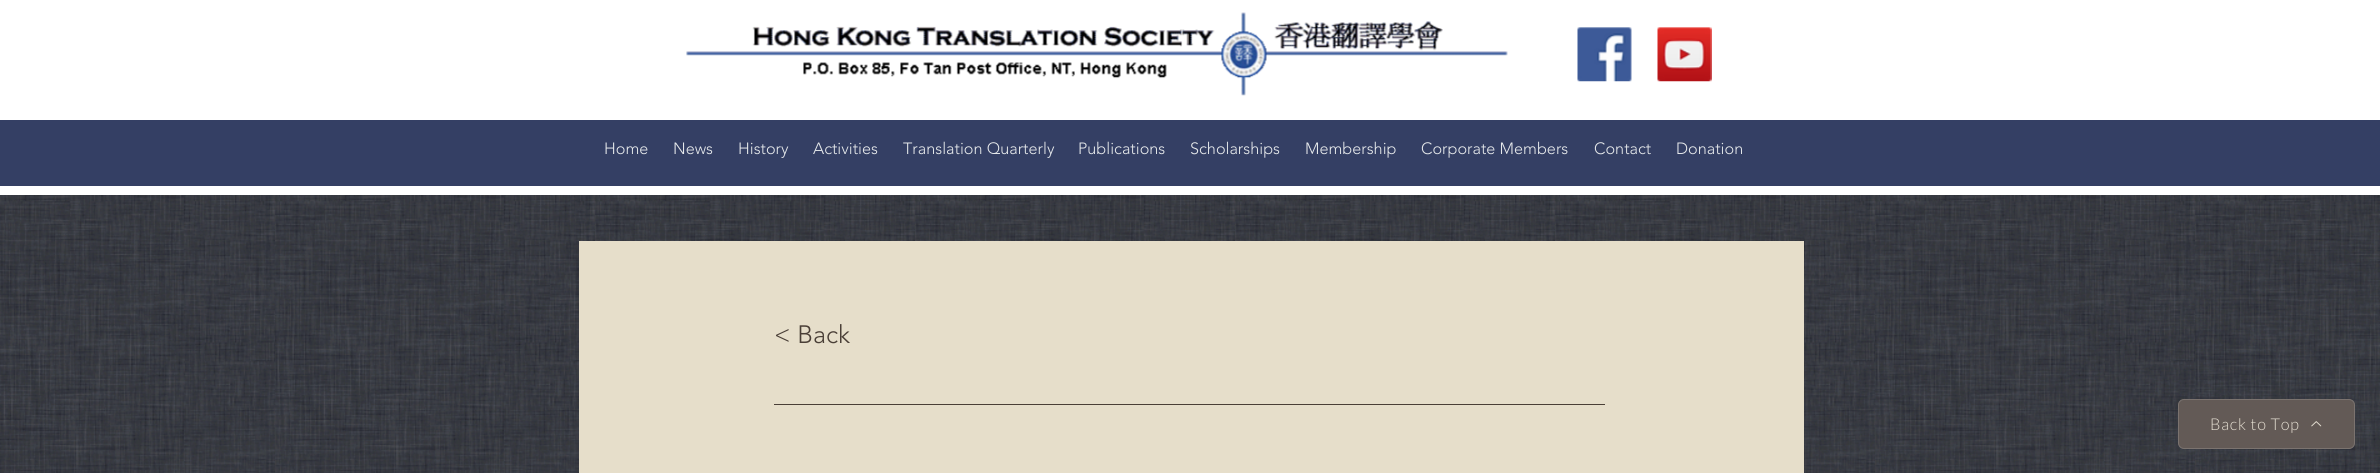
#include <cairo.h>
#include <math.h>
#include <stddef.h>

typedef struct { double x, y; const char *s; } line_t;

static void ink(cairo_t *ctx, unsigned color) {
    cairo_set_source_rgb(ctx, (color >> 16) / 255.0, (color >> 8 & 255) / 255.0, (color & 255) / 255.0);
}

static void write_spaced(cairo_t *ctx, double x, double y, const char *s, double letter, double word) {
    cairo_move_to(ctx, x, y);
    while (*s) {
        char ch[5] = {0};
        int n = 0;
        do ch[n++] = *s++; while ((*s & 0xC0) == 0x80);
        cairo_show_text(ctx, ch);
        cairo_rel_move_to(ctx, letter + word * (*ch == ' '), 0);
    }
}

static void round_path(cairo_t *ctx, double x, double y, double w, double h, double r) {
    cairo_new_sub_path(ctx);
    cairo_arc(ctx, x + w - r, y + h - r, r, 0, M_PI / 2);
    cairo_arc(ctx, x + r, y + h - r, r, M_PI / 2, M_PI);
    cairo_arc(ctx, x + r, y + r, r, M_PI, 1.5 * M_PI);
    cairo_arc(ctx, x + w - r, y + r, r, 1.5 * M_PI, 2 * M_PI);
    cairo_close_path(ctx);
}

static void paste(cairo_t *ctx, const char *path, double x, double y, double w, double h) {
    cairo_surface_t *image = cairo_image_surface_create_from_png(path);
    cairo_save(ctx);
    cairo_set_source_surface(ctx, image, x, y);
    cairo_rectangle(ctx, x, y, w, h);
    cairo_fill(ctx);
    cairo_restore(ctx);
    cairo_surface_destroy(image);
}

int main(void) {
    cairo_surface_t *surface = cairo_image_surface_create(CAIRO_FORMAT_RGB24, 2380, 473);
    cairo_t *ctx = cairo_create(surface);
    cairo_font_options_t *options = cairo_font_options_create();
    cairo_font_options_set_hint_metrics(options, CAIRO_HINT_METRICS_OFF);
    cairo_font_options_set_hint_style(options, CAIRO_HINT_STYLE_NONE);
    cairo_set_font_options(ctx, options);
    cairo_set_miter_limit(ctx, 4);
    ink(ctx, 0xFFFFFF);
    cairo_paint(ctx);
    paste(ctx, "media/1.png", 686, 12, 822, 84);
    paste(ctx, "media/2.png", 1577, 27, 55, 55);
    paste(ctx, "media/3.png", 1657, 27, 55, 55);
    ink(ctx, 0x343F64);
    cairo_rectangle(ctx, 0, 120, 2380, 66);
    cairo_fill(ctx);
    cairo_select_font_face(ctx, "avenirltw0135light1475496 Light", CAIRO_FONT_SLANT_NORMAL, CAIRO_FONT_WEIGHT_NORMAL);
    cairo_set_font_size(ctx, 16.25);
    ink(ctx, 0xE6E9EB);
    {
        static const line_t items[] = {
            {604, 154, "Home"},
            {673, 154, "News"},
            {738, 154, "History"},
            {813, 154, "Activities"},
            {903, 154, "Translation Quarterly"},
            {1078, 154, "Publications"},
            {1190, 154, "Scholarships"},
            {1305, 154, "Membership"},
            {1421, 154, "Corporate Members"},
            {1594, 154, "Contact"},
            {1676, 154, "Donation"},
        };
        for (size_t i = 0; i < sizeof items / sizeof *items; i++) {
            cairo_move_to(ctx, items[i].x, items[i].y);
            cairo_show_text(ctx, items[i].s);
        }
    }
    paste(ctx, "media/4.png", 0, 195, 2380, 278);
    ink(ctx, 0xE6DECA);
    cairo_rectangle(ctx, 579, 241, 1225, 232);
    cairo_fill(ctx);
    cairo_set_font_size(ctx, 25);
    ink(ctx, 0x4A3F37);
    cairo_move_to(ctx, 774, 343);
    cairo_show_text(ctx, "< Back");
    cairo_rectangle(ctx, 774, 404, 831, 1);
    cairo_fill(ctx);
    ink(ctx, 0x635A56);
    round_path(ctx, 2178.5, 399.5, 176, 49, 5.5);
    cairo_fill_preserve(ctx);
    ink(ctx, 0x7B736F);
    cairo_set_line_width(ctx, 1);
    cairo_stroke(ctx);
    cairo_select_font_face(ctx, "Lato Light", CAIRO_FONT_SLANT_NORMAL, CAIRO_FONT_WEIGHT_NORMAL);
    cairo_set_font_size(ctx, 16.25);
    ink(ctx, 0xE6E0D3);
    write_spaced(ctx, 2210, 430, "Back to Top", 0.75, 0);
    paste(ctx, "media/5.png", 2311, 421, 11, 6);
    cairo_surface_write_to_png(surface, "image.png");
    cairo_font_options_destroy(options);
    cairo_destroy(ctx);
    cairo_surface_destroy(surface);
    return 0;
}
